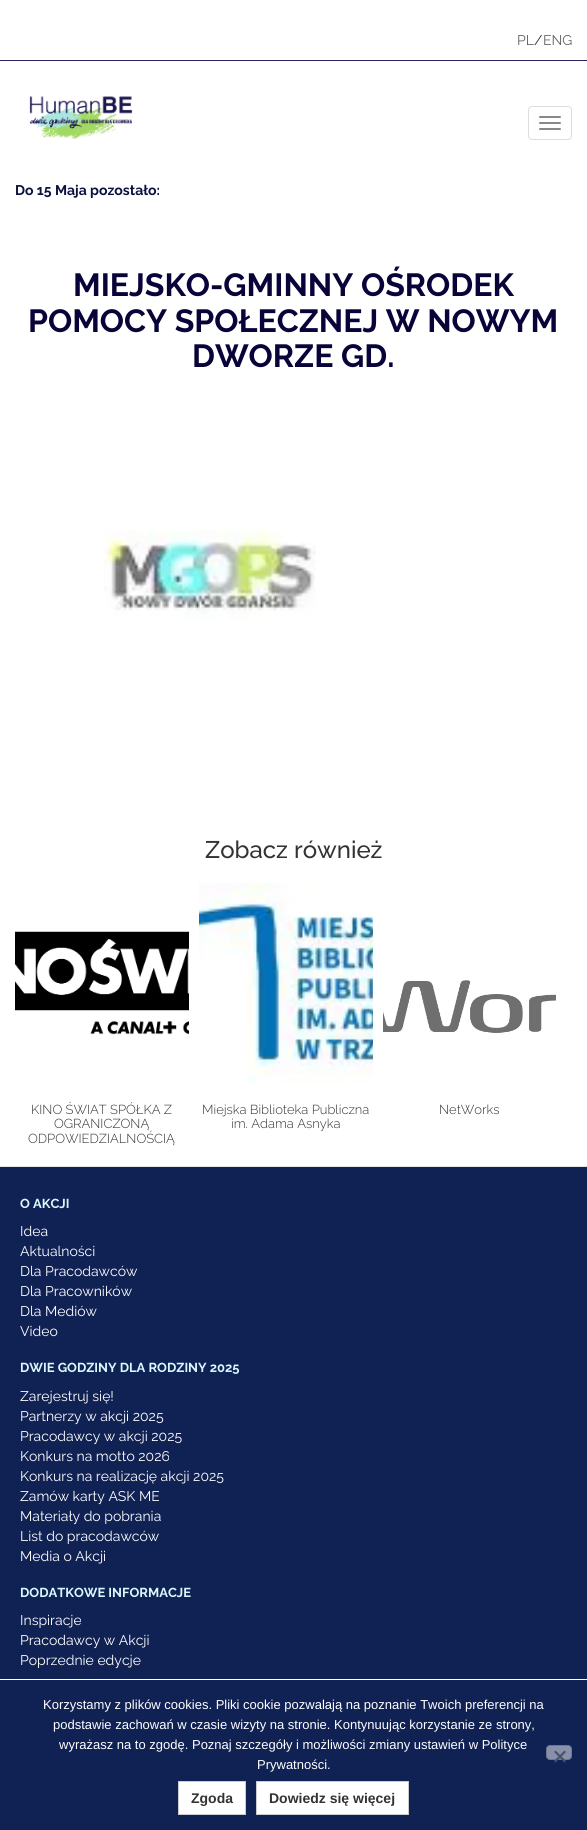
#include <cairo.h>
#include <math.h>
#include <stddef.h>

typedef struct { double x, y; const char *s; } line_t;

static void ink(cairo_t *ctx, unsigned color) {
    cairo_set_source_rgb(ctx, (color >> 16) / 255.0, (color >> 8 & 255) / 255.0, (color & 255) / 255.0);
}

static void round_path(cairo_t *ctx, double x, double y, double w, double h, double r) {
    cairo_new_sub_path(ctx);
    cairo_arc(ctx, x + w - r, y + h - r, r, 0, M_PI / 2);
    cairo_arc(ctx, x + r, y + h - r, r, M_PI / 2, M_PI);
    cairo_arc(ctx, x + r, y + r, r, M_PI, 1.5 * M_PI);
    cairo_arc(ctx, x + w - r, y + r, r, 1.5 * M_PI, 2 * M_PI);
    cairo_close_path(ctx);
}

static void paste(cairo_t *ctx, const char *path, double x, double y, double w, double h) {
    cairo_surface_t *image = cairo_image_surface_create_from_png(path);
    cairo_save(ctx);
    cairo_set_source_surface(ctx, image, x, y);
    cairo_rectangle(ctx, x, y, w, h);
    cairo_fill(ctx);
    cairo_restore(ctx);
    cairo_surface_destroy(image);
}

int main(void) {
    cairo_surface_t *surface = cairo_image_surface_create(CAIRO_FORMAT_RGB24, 587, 1830);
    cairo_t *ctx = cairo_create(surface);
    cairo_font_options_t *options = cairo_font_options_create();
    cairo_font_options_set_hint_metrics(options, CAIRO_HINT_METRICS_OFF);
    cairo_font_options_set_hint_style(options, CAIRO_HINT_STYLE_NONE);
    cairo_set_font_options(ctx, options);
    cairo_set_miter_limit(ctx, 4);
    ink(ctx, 0xFFFFFF);
    cairo_paint(ctx);
    ink(ctx, 0x2C2363);
    cairo_rectangle(ctx, 0, 60, 587, 1);
    cairo_fill(ctx);
    cairo_select_font_face(ctx, "Raleway", CAIRO_FONT_SLANT_NORMAL, CAIRO_FONT_WEIGHT_NORMAL);
    cairo_set_font_size(ctx, 14);
    ink(ctx, 0x646464);
    cairo_move_to(ctx, 517, 45);
    cairo_show_text(ctx, "PL");
    ink(ctx, 0x333333);
    cairo_move_to(ctx, 534, 45);
    cairo_show_text(ctx, "/");
    ink(ctx, 0x646464);
    cairo_move_to(ctx, 543, 45);
    cairo_show_text(ctx, "ENG");
    paste(ctx, "media/1.png", 29, 96, 104, 43);
    round_path(ctx, 528.5, 106.5, 43, 33, 3.5);
    ink(ctx, 0xDDDDDD);
    cairo_set_line_width(ctx, 1);
    cairo_stroke(ctx);
    ink(ctx, 0x888888);
    round_path(ctx, 539, 116, 22, 2, 1);
    cairo_fill(ctx);
    round_path(ctx, 539, 122, 22, 2, 1);
    cairo_fill(ctx);
    round_path(ctx, 539, 128, 22, 2, 1);
    cairo_fill(ctx);
    cairo_select_font_face(ctx, "Raleway", CAIRO_FONT_SLANT_NORMAL, CAIRO_FONT_WEIGHT_BOLD);
    ink(ctx, 0x0B1241);
    cairo_move_to(ctx, 15, 195);
    cairo_show_text(ctx, "Do 15 Maja pozostało:");
    cairo_set_font_size(ctx, 32);
    ink(ctx, 0x080439);
    {
        static const line_t items[] = {
            {73, 296, "MIEJSKO-GMINNY OŚRODEK"},
            {28, 332, "POMOCY SPOŁECZNEJ W NOWYM"},
            {192, 367, "DWORZE GD."},
        };
        for (size_t i = 0; i < sizeof items / sizeof *items; i++) {
            cairo_move_to(ctx, items[i].x, items[i].y);
            cairo_show_text(ctx, items[i].s);
        }
    }
    paste(ctx, "media/2.png", 103, 530, 213, 91);
    cairo_select_font_face(ctx, "Raleway Medium", CAIRO_FONT_SLANT_NORMAL, CAIRO_FONT_WEIGHT_NORMAL);
    cairo_set_font_size(ctx, 24);
    ink(ctx, 0x333333);
    cairo_move_to(ctx, 205, 858);
    cairo_show_text(ctx, "Zobacz również");
    paste(ctx, "media/3.png", 15, 931, 174, 104);
    cairo_select_font_face(ctx, "Raleway Light", CAIRO_FONT_SLANT_NORMAL, CAIRO_FONT_WEIGHT_NORMAL);
    cairo_set_font_size(ctx, 13);
    {
        static const line_t items[] = {
            {31, 1114, "KINO ŚWIAT SPÓŁKA Z"},
            {54, 1128, "OGRANICZONĄ"},
            {28, 1143, "ODPOWIEDZIALNOŚCIĄ"},
        };
        for (size_t i = 0; i < sizeof items / sizeof *items; i++) {
            cairo_move_to(ctx, items[i].x, items[i].y);
            cairo_show_text(ctx, items[i].s);
        }
    }
    paste(ctx, "media/4.png", 199, 883, 174, 200);
    cairo_move_to(ctx, 202, 1114);
    cairo_show_text(ctx, "Miejska Biblioteka Publiczna");
    cairo_move_to(ctx, 231, 1128);
    cairo_show_text(ctx, "im. Adama Asnyka");
    paste(ctx, "media/5.png", 383, 980, 173, 53);
    cairo_move_to(ctx, 439, 1114);
    cairo_show_text(ctx, "NetWorks");
    ink(ctx, 0x102154);
    cairo_rectangle(ctx, 0, 1167, 587, 663);
    cairo_fill(ctx);
    ink(ctx, 0xE5E5E5);
    cairo_rectangle(ctx, 0, 1166, 587, 1);
    cairo_fill(ctx);
    cairo_select_font_face(ctx, "Raleway", CAIRO_FONT_SLANT_NORMAL, CAIRO_FONT_WEIGHT_BOLD);
    ink(ctx, 0xD9F8FD);
    cairo_move_to(ctx, 20, 1208);
    cairo_show_text(ctx, "O AKCJI");
    cairo_select_font_face(ctx, "Raleway", CAIRO_FONT_SLANT_NORMAL, CAIRO_FONT_WEIGHT_NORMAL);
    cairo_set_font_size(ctx, 14);
    ink(ctx, 0xFFFFFF);
    {
        static const line_t items[] = {
            {20, 1236, "Idea"},
            {20, 1256, "Aktualności"},
            {20, 1276, "Dla Pracodawców"},
            {20, 1296, "Dla Pracowników"},
            {20, 1316, "Dla Mediów"},
            {20, 1336, "Video"},
        };
        for (size_t i = 0; i < sizeof items / sizeof *items; i++) {
            cairo_move_to(ctx, items[i].x, items[i].y);
            cairo_show_text(ctx, items[i].s);
        }
    }
    cairo_select_font_face(ctx, "Raleway", CAIRO_FONT_SLANT_NORMAL, CAIRO_FONT_WEIGHT_BOLD);
    cairo_set_font_size(ctx, 13);
    ink(ctx, 0xD9F8FD);
    cairo_move_to(ctx, 20, 1372);
    cairo_show_text(ctx, "DWIE GODZINY DLA RODZINY 2025");
    cairo_select_font_face(ctx, "Raleway", CAIRO_FONT_SLANT_NORMAL, CAIRO_FONT_WEIGHT_NORMAL);
    cairo_set_font_size(ctx, 14);
    ink(ctx, 0xFFFFFF);
    {
        static const line_t items[] = {
            {20, 1401, "Zarejestruj się!"},
            {20, 1421, "Partnerzy w akcji 2025"},
            {20, 1441, "Pracodawcy w akcji 2025"},
            {20, 1461, "Konkurs na motto 2026"},
            {20, 1481, "Konkurs na realizację akcji 2025"},
            {20, 1501, "Zamów karty ASK ME"},
            {20, 1521, "Materiały do pobrania"},
            {20, 1541, "List do pracodawców"},
            {20, 1561, "Media o Akcji"},
        };
        for (size_t i = 0; i < sizeof items / sizeof *items; i++) {
            cairo_move_to(ctx, items[i].x, items[i].y);
            cairo_show_text(ctx, items[i].s);
        }
    }
    cairo_select_font_face(ctx, "Raleway", CAIRO_FONT_SLANT_NORMAL, CAIRO_FONT_WEIGHT_BOLD);
    cairo_set_font_size(ctx, 13);
    ink(ctx, 0xD9F8FD);
    cairo_move_to(ctx, 20, 1597);
    cairo_show_text(ctx, "DODATKOWE INFORMACJE");
    cairo_select_font_face(ctx, "Raleway", CAIRO_FONT_SLANT_NORMAL, CAIRO_FONT_WEIGHT_NORMAL);
    cairo_set_font_size(ctx, 14);
    ink(ctx, 0xFFFFFF);
    {
        static const line_t items[] = {
            {20, 1625, "Inspiracje"},
            {20, 1645, "Pracodawcy w Akcji"},
            {20, 1665, "Poprzednie edycje"},
        };
        for (size_t i = 0; i < sizeof items / sizeof *items; i++) {
            cairo_move_to(ctx, items[i].x, items[i].y);
            cairo_show_text(ctx, items[i].s);
        }
    }
    cairo_rectangle(ctx, 0, 1679, 587, 1);
    cairo_fill(ctx);
    cairo_select_font_face(ctx, "Liberation Sans", CAIRO_FONT_SLANT_NORMAL, CAIRO_FONT_WEIGHT_NORMAL);
    cairo_set_font_size(ctx, 13);
    {
        static const line_t items[] = {
            {43, 1709, "Korzystamy z plików cookies. Pliki cookie pozwalają na poznanie Twoich preferencji na"},
            {53, 1729, "podstawie zachowań w czasie wizyty na stronie. Kontynuując korzystanie ze strony,"},
            {59, 1749, "wyrażasz na to zgodę. Poznaj szczegóły i możliwości zmiany ustawień w Polityce"},
            {257, 1769, "Prywatności."},
        };
        for (size_t i = 0; i < sizeof items / sizeof *items; i++) {
            cairo_move_to(ctx, items[i].x, items[i].y);
            cairo_show_text(ctx, items[i].s);
        }
    }
    ink(ctx, 0x8890AA);
    round_path(ctx, 546.5, 1745.5, 25, 14, 3.5);
    cairo_fill_preserve(ctx);
    ink(ctx, 0x6E7790);
    cairo_stroke(ctx);
    ink(ctx, 0x48516A);
    cairo_new_path(ctx);
    cairo_move_to(ctx, 564.5, 1750.5);
    cairo_line_to(ctx, 566, 1752);
    cairo_line_to(ctx, 555.5, 1762.5);
    cairo_line_to(ctx, 554, 1761);
    cairo_close_path(ctx);
    cairo_fill(ctx);
    cairo_new_path(ctx);
    cairo_move_to(ctx, 554, 1752);
    cairo_line_to(ctx, 555.5, 1750.5);
    cairo_line_to(ctx, 566, 1761);
    cairo_line_to(ctx, 564.5, 1762.5);
    cairo_close_path(ctx);
    cairo_fill(ctx);
    ink(ctx, 0xFFFFFF);
    cairo_rectangle(ctx, 178.5, 1781.5, 67, 33);
    cairo_fill_preserve(ctx);
    ink(ctx, 0xCCCCCC);
    cairo_stroke(ctx);
    cairo_select_font_face(ctx, "Liberation Sans", CAIRO_FONT_SLANT_NORMAL, CAIRO_FONT_WEIGHT_BOLD);
    cairo_set_font_size(ctx, 14);
    ink(ctx, 0x333333);
    cairo_move_to(ctx, 191, 1803);
    cairo_show_text(ctx, "Zgoda");
    ink(ctx, 0xFFFFFF);
    cairo_rectangle(ctx, 256.5, 1781.5, 152, 33);
    cairo_fill_preserve(ctx);
    ink(ctx, 0xCCCCCC);
    cairo_stroke(ctx);
    ink(ctx, 0x333333);
    cairo_move_to(ctx, 269, 1803);
    cairo_show_text(ctx, "Dowiedz się więcej");
    cairo_surface_write_to_png(surface, "image.png");
    cairo_font_options_destroy(options);
    cairo_destroy(ctx);
    cairo_surface_destroy(surface);
    return 0;
}
